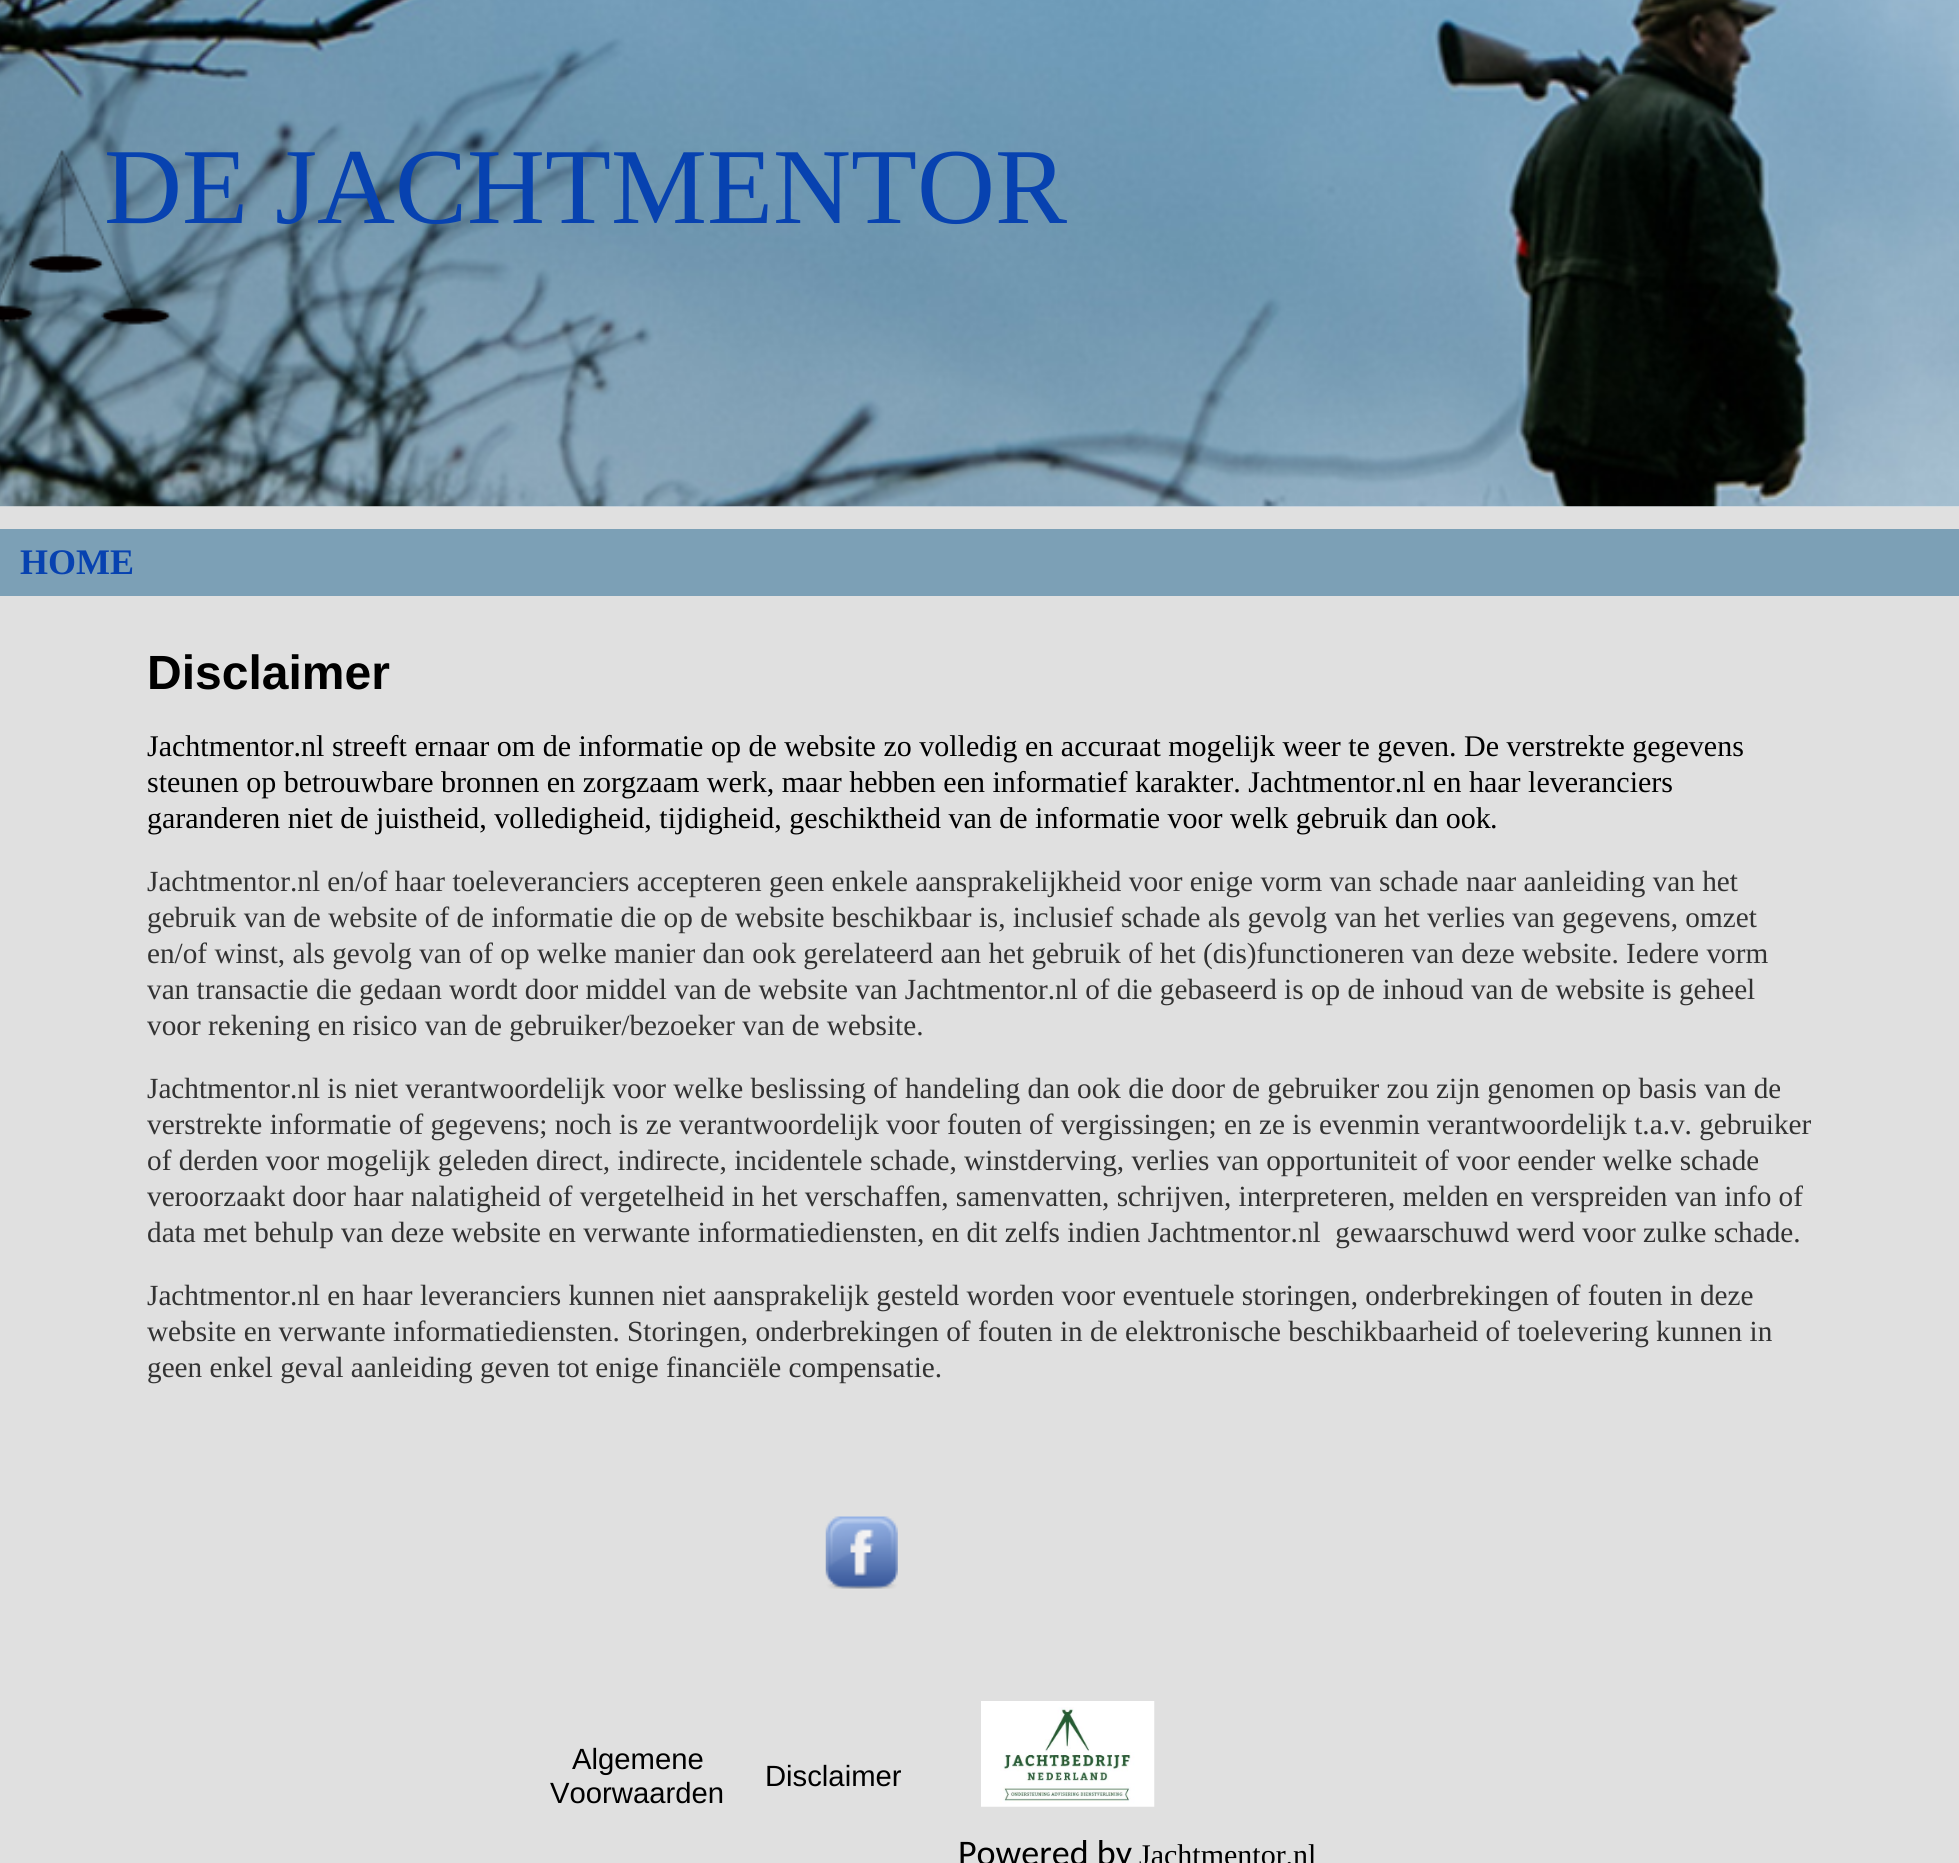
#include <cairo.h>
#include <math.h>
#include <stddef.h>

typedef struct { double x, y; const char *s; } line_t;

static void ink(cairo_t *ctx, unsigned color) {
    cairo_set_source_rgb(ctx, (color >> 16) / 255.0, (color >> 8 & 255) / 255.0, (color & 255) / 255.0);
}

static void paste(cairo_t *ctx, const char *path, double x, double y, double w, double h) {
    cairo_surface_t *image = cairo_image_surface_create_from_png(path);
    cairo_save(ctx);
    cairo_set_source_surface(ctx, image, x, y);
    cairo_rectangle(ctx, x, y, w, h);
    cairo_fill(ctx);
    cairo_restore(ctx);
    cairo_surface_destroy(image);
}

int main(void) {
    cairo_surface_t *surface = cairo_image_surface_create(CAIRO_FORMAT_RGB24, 1959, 1863);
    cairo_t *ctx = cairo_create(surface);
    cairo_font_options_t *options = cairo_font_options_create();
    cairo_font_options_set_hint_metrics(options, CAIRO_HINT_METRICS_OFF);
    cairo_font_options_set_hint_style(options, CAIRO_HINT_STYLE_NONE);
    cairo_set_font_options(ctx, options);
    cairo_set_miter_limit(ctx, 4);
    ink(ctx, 0xE0E0E0);
    cairo_paint(ctx);
    paste(ctx, "media/1.png", 0, 506, 1959, 1);
    paste(ctx, "media/2.png", 0, 0, 1959, 507);
    paste(ctx, "media/3.png", 0, 149, 171, 176);
    cairo_select_font_face(ctx, "Liberation Serif", CAIRO_FONT_SLANT_NORMAL, CAIRO_FONT_WEIGHT_NORMAL);
    cairo_set_font_size(ctx, 108);
    ink(ctx, 0x0742B0);
    cairo_move_to(ctx, 104, 223);
    cairo_show_text(ctx, "DE JACHTMENTOR");
    ink(ctx, 0x7CA0B6);
    cairo_rectangle(ctx, 0, 529, 1959, 67);
    cairo_fill(ctx);
    cairo_select_font_face(ctx, "Liberation Serif", CAIRO_FONT_SLANT_NORMAL, CAIRO_FONT_WEIGHT_BOLD);
    cairo_set_font_size(ctx, 36);
    ink(ctx, 0x0742B0);
    cairo_move_to(ctx, 20, 574);
    cairo_show_text(ctx, "HOME");
    cairo_select_font_face(ctx, "Liberation Sans", CAIRO_FONT_SLANT_NORMAL, CAIRO_FONT_WEIGHT_BOLD);
    cairo_set_font_size(ctx, 48);
    ink(ctx, 0x000000);
    cairo_move_to(ctx, 147, 689);
    cairo_show_text(ctx, "Disclaimer");
    cairo_select_font_face(ctx, "Liberation Serif", CAIRO_FONT_SLANT_NORMAL, CAIRO_FONT_WEIGHT_NORMAL);
    cairo_set_font_size(ctx, 30);
    {
        static const line_t items[] = {
            {147, 756, "Jachtmentor.nl streeft ernaar om de informatie op de website zo volledig en accuraat mogelijk weer te geven. De verstrekte gegevens"},
            {147, 792, "steunen op betrouwbare bronnen en zorgzaam werk, maar hebben een informatief karakter. Jachtmentor.nl en haar leveranciers"},
            {147, 828, "garanderen niet de juistheid, volledigheid, tijdigheid, geschiktheid van de informatie voor welk gebruik dan ook"},
            {1490, 828, "."},
        };
        for (size_t i = 0; i < sizeof items / sizeof *items; i++) {
            cairo_move_to(ctx, items[i].x, items[i].y);
            cairo_show_text(ctx, items[i].s);
        }
    }
    cairo_set_font_size(ctx, 29.25);
    ink(ctx, 0x333333);
    {
        static const line_t items[] = {
            {147, 891, "Jachtmentor.nl en/of haar toeleveranciers accepteren geen enkele aansprakelijkheid voor enige vorm van schade naar aanleiding van het"},
            {147, 927, "gebruik van de website of de informatie die op de website beschikbaar is, inclusief schade als gevolg van het verlies van gegevens, omzet"},
            {147, 963, "en/of winst, als gevolg van of op welke manier dan ook gerelateerd aan het gebruik of het (dis)functioneren van deze website. Iedere vorm"},
            {147, 999, "van transactie die gedaan wordt door middel van de website van Jachtmentor.nl of die gebaseerd is op de inhoud van de website is geheel"},
            {147, 1035, "voor rekening en risico van de gebruiker/bezoeker van de website."},
            {147, 1098, "Jachtmentor.nl is niet verantwoordelijk voor welke beslissing of handeling dan ook die door de gebruiker zou zijn genomen op basis van de"},
            {147, 1134, "verstrekte informatie of gegevens; noch is ze verantwoordelijk voor fouten of vergissingen; en ze is evenmin verantwoordelijk t.a.v. gebruiker"},
            {147, 1170, "of derden voor mogelijk geleden direct, indirecte, incidentele schade, winstderving, verlies van opportuniteit of voor eender welke schade"},
            {147, 1206, "veroorzaakt door haar nalatigheid of vergetelheid in het verschaffen, samenvatten, schrijven, interpreteren, melden en verspreiden van info of"},
            {147, 1242, "data met behulp van deze website en verwante informatiediensten, en dit zelfs indien Jachtmentor.nl  gewaarschuwd werd voor zulke schade."},
            {147, 1305, "Jachtmentor.nl en haar leveranciers kunnen niet aansprakelijk gesteld worden voor eventuele storingen, onderbrekingen of fouten in deze"},
            {147, 1341, "website en verwante informatiediensten. Storingen, onderbrekingen of fouten in de elektronische beschikbaarheid of toelevering kunnen in"},
            {147, 1377, "geen enkel geval aanleiding geven tot enige financiële compensatie."},
        };
        for (size_t i = 0; i < sizeof items / sizeof *items; i++) {
            cairo_move_to(ctx, items[i].x, items[i].y);
            cairo_show_text(ctx, items[i].s);
        }
    }
    paste(ctx, "media/4.png", 825, 1516, 73, 73);
    cairo_select_font_face(ctx, "Liberation Sans", CAIRO_FONT_SLANT_NORMAL, CAIRO_FONT_WEIGHT_NORMAL);
    ink(ctx, 0x000000);
    {
        static const line_t items[] = {
            {572, 1769, "Algemene"},
            {550, 1803, "Voorwaarden"},
            {765, 1786, "Disclaimer"},
        };
        for (size_t i = 0; i < sizeof items / sizeof *items; i++) {
            cairo_move_to(ctx, items[i].x, items[i].y);
            cairo_show_text(ctx, items[i].s);
        }
    }
    paste(ctx, "media/5.png", 981, 1701, 174, 106);
    cairo_select_font_face(ctx, "Carlito", CAIRO_FONT_SLANT_NORMAL, CAIRO_FONT_WEIGHT_NORMAL);
    cairo_set_font_size(ctx, 36);
    cairo_move_to(ctx, 958, 1865);
    cairo_show_text(ctx, "Powered by");
    cairo_select_font_face(ctx, "Liberation Serif", CAIRO_FONT_SLANT_NORMAL, CAIRO_FONT_WEIGHT_NORMAL);
    cairo_set_font_size(ctx, 30);
    cairo_move_to(ctx, 1139, 1865);
    cairo_show_text(ctx, "Jachtmentor.nl");
    cairo_surface_write_to_png(surface, "image.png");
    cairo_font_options_destroy(options);
    cairo_destroy(ctx);
    cairo_surface_destroy(surface);
    return 0;
}
